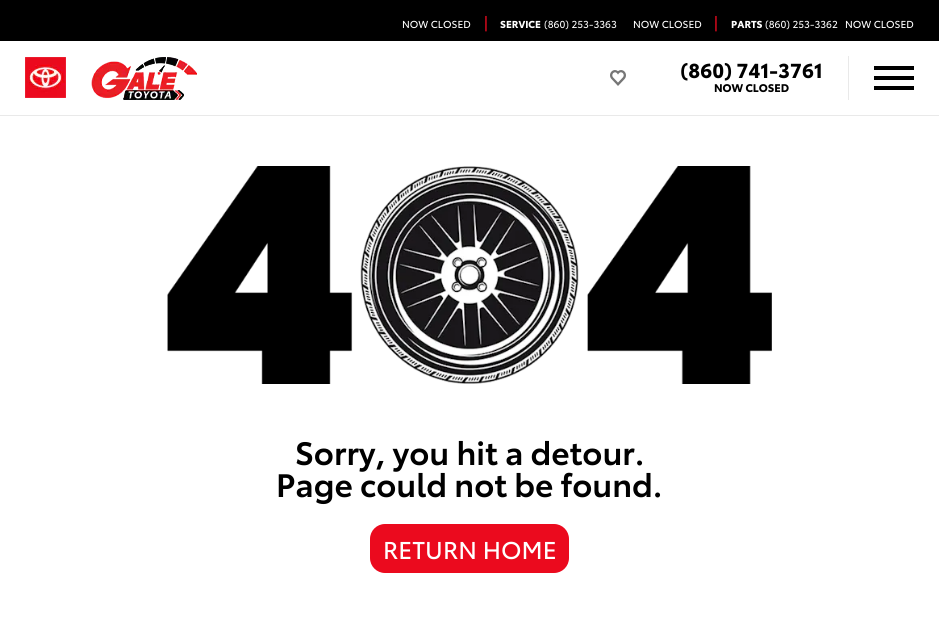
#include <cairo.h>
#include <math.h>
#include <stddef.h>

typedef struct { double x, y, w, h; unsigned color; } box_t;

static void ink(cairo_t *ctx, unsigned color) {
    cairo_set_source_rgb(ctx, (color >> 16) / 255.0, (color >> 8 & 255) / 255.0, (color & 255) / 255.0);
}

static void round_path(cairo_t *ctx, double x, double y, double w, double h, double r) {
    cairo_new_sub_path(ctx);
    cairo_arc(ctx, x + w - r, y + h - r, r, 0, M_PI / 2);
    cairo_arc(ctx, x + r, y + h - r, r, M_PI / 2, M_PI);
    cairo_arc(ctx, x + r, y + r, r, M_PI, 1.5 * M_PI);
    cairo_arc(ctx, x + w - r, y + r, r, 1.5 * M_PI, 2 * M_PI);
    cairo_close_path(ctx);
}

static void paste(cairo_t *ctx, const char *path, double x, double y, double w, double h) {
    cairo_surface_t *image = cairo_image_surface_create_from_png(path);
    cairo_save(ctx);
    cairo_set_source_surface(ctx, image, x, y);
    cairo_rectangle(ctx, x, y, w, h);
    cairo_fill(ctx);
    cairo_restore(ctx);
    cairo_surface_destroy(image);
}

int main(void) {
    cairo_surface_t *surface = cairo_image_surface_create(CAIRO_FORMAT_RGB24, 939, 620);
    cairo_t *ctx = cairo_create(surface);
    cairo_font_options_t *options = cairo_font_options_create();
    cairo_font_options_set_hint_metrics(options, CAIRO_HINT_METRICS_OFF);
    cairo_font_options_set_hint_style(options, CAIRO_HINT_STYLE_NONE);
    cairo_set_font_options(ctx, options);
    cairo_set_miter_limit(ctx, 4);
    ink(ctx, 0xFFFFFF);
    cairo_paint(ctx);
    ink(ctx, 0x000000);
    cairo_rectangle(ctx, 0, 0, 939, 41);
    cairo_fill(ctx);
    cairo_select_font_face(ctx, "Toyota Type", CAIRO_FONT_SLANT_NORMAL, CAIRO_FONT_WEIGHT_NORMAL);
    cairo_set_font_size(ctx, 10);
    ink(ctx, 0xFFFFFF);
    cairo_move_to(ctx, 402, 28);
    cairo_show_text(ctx, "NOW CLOSED");
    cairo_set_font_size(ctx, 16);
    ink(ctx, 0xEB0A1E);
    cairo_move_to(ctx, 484, 28);
    cairo_show_text(ctx, "|");
    cairo_select_font_face(ctx, "Toyota Type", CAIRO_FONT_SLANT_NORMAL, CAIRO_FONT_WEIGHT_BOLD);
    cairo_set_font_size(ctx, 10);
    ink(ctx, 0xFFFFFF);
    cairo_move_to(ctx, 500, 28);
    cairo_show_text(ctx, "SERVICE");
    cairo_select_font_face(ctx, "Toyota Type", CAIRO_FONT_SLANT_NORMAL, CAIRO_FONT_WEIGHT_NORMAL);
    cairo_move_to(ctx, 544, 28);
    cairo_show_text(ctx, "(860) 253-3363");
    cairo_move_to(ctx, 633, 28);
    cairo_show_text(ctx, "NOW CLOSED");
    cairo_set_font_size(ctx, 16);
    ink(ctx, 0xEB0A1E);
    cairo_move_to(ctx, 714, 28);
    cairo_show_text(ctx, "|");
    cairo_select_font_face(ctx, "Toyota Type", CAIRO_FONT_SLANT_NORMAL, CAIRO_FONT_WEIGHT_BOLD);
    cairo_set_font_size(ctx, 10);
    ink(ctx, 0xFFFFFF);
    cairo_move_to(ctx, 731, 28);
    cairo_show_text(ctx, "PARTS");
    cairo_select_font_face(ctx, "Toyota Type", CAIRO_FONT_SLANT_NORMAL, CAIRO_FONT_WEIGHT_NORMAL);
    cairo_move_to(ctx, 765, 28);
    cairo_show_text(ctx, "(860) 253-3362");
    cairo_move_to(ctx, 845, 28);
    cairo_show_text(ctx, "NOW CLOSED");
    ink(ctx, 0xE9E9E9);
    cairo_rectangle(ctx, 0, 115, 939, 1);
    cairo_fill(ctx);
    paste(ctx, "media/1.png", 25, 57, 41, 41);
    paste(ctx, "media/2.png", 91, 57, 106, 43);
    paste(ctx, "media/3.png", 610, 70, 16, 16);
    cairo_rectangle(ctx, 848, 56, 1, 44);
    cairo_fill(ctx);
    cairo_select_font_face(ctx, "Toyota Type", CAIRO_FONT_SLANT_NORMAL, CAIRO_FONT_WEIGHT_BOLD);
    cairo_set_font_size(ctx, 20);
    ink(ctx, 0x000000);
    cairo_move_to(ctx, 680, 78);
    cairo_show_text(ctx, "(860) 741-3761");
    cairo_set_font_size(ctx, 11);
    cairo_move_to(ctx, 714, 92);
    cairo_show_text(ctx, "NOW CLOSED");
    {
        static const box_t items[] = {
            {874, 66, 40, 4, 0x000000},
            {874, 76, 40, 4, 0x000000},
            {874, 86, 40, 4, 0x000000},
        };
        for (size_t i = 0; i < sizeof items / sizeof *items; i++) {
            ink(ctx, items[i].color);
            cairo_rectangle(ctx, items[i].x, items[i].y, items[i].w, items[i].h);
            cairo_fill(ctx);
        }
    }
    paste(ctx, "media/4.png", 167, 166, 605, 218);
    cairo_select_font_face(ctx, "Toyota Type SemiBold", CAIRO_FONT_SLANT_NORMAL, CAIRO_FONT_WEIGHT_NORMAL);
    cairo_set_font_size(ctx, 32);
    cairo_move_to(ctx, 295, 465);
    cairo_show_text(ctx, "Sorry, you hit a detour.");
    cairo_move_to(ctx, 276, 497);
    cairo_show_text(ctx, "Page could not be found.");
    ink(ctx, 0xEB0A1E);
    round_path(ctx, 370, 524, 199, 49, 15);
    cairo_fill(ctx);
    cairo_select_font_face(ctx, "Toyota Type", CAIRO_FONT_SLANT_NORMAL, CAIRO_FONT_WEIGHT_NORMAL);
    cairo_set_font_size(ctx, 24);
    ink(ctx, 0xFFFFFF);
    cairo_move_to(ctx, 383, 559);
    cairo_show_text(ctx, "RETURN HOME");
    cairo_surface_write_to_png(surface, "image.png");
    cairo_font_options_destroy(options);
    cairo_destroy(ctx);
    cairo_surface_destroy(surface);
    return 0;
}
